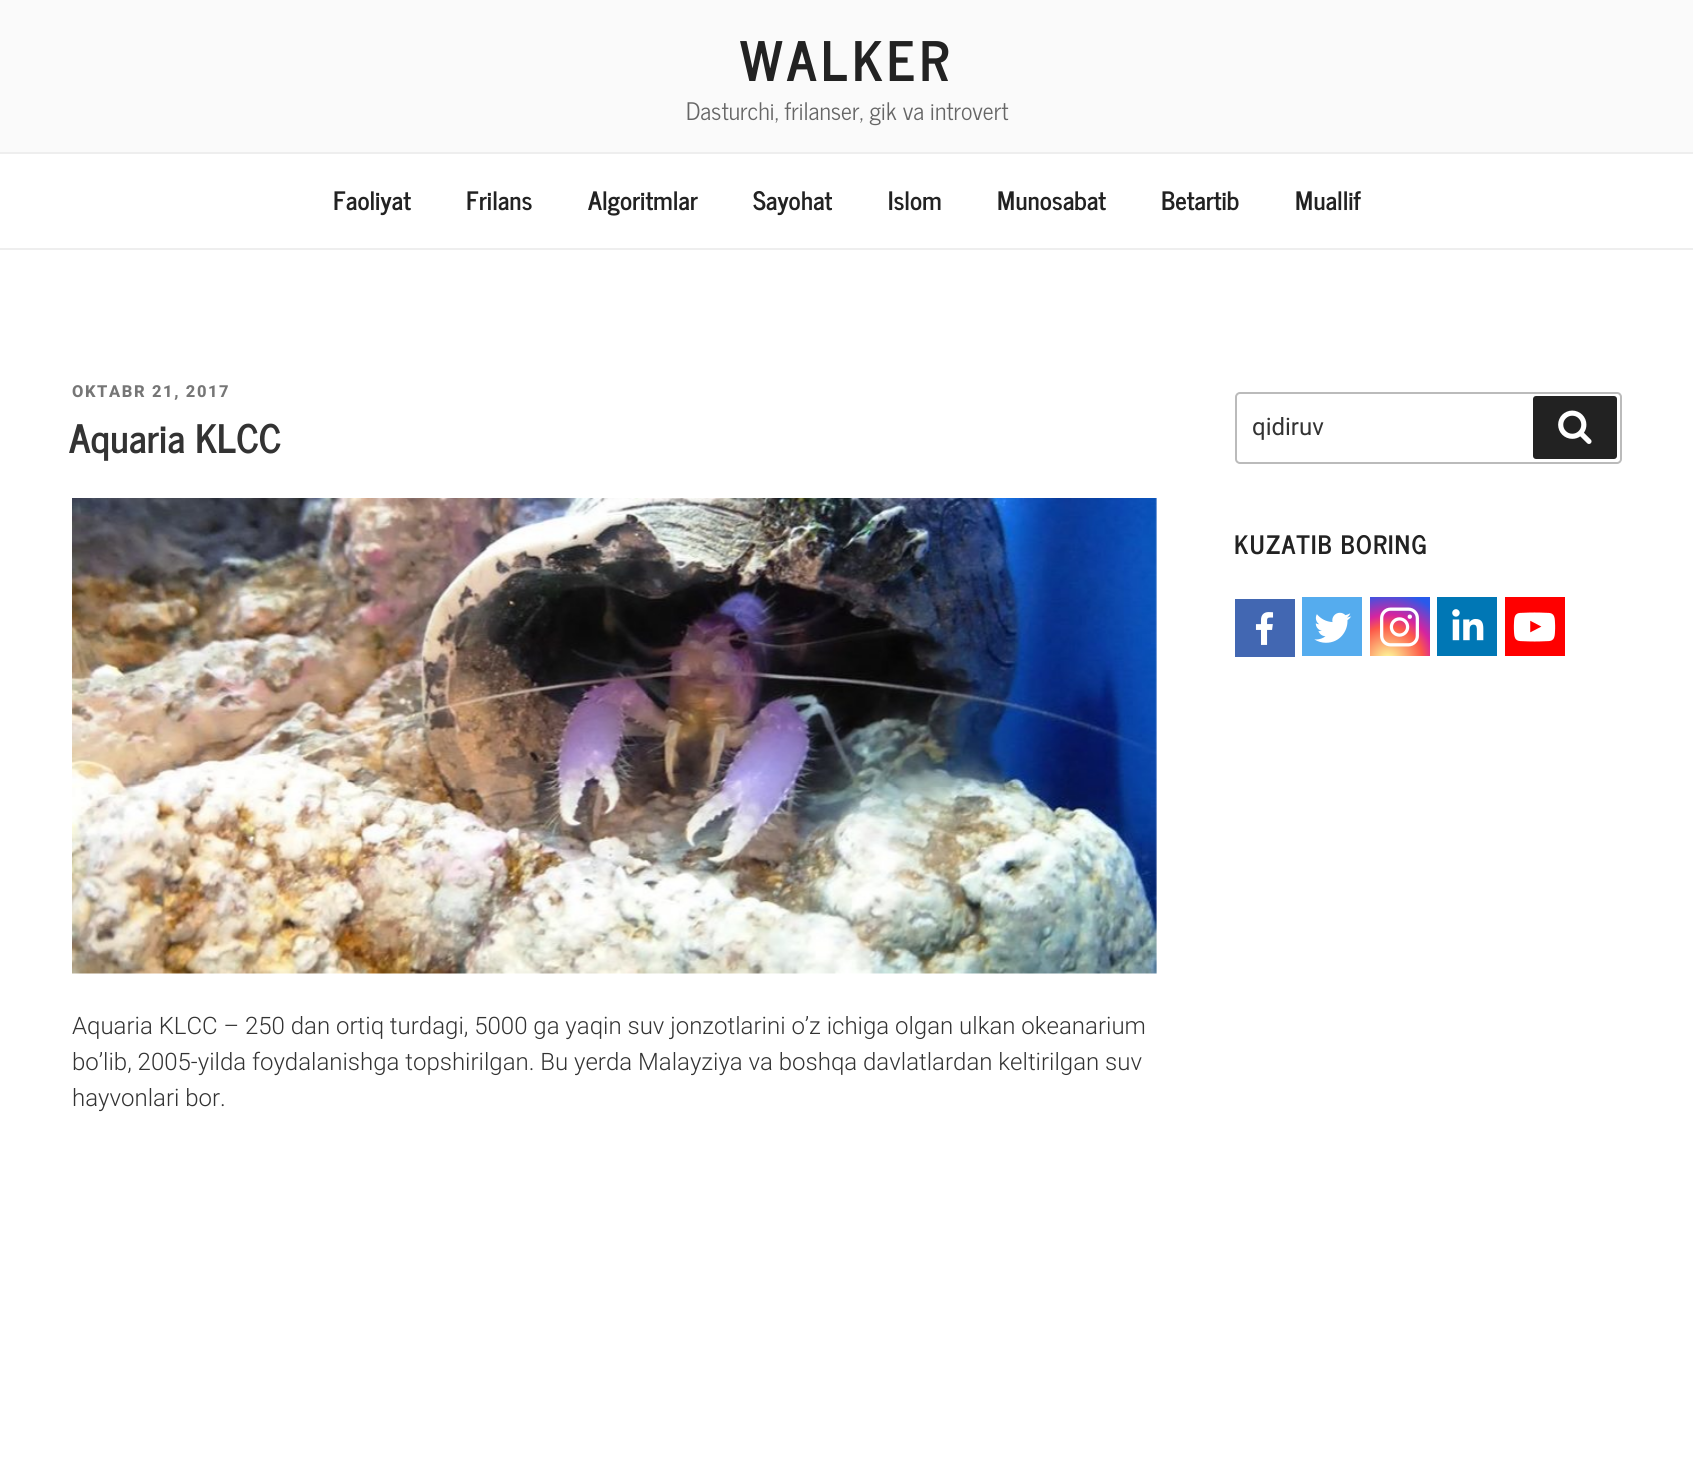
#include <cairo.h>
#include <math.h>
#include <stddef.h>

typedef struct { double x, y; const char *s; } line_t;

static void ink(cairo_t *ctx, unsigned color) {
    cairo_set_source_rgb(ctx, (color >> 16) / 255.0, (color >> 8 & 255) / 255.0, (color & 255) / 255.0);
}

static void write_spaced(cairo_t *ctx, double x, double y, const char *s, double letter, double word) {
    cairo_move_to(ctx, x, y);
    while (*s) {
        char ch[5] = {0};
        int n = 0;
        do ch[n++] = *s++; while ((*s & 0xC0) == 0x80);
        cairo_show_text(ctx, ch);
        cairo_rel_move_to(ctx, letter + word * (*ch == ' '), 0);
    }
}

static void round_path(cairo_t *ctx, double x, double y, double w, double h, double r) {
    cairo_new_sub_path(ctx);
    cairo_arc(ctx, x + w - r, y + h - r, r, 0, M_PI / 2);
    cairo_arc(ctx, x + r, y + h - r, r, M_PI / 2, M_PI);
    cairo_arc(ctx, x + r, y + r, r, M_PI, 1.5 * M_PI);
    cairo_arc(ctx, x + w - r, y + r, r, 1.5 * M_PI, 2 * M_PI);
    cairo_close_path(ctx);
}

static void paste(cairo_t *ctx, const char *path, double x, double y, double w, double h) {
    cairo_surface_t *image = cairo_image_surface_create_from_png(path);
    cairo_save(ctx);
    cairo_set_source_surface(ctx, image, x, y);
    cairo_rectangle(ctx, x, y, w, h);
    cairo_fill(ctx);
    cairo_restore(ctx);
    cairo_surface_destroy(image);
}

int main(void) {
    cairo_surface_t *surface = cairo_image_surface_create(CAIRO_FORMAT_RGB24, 1693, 1469);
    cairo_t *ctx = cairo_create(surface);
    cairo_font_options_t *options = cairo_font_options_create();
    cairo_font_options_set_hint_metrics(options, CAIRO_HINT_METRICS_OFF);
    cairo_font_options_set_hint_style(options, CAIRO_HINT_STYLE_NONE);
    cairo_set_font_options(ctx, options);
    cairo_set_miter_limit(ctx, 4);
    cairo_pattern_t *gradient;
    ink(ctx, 0xFFFFFF);
    cairo_paint(ctx);
    ink(ctx, 0xFAFAFA);
    cairo_rectangle(ctx, 0, 0, 1693, 152);
    cairo_fill(ctx);
    cairo_select_font_face(ctx, "News Cycle", CAIRO_FONT_SLANT_NORMAL, CAIRO_FONT_WEIGHT_BOLD);
    cairo_set_font_size(ctx, 54);
    ink(ctx, 0x222222);
    write_spaced(ctx, 740, 81, "WALKER", 4.25, 0);
    cairo_select_font_face(ctx, "News Cycle", CAIRO_FONT_SLANT_NORMAL, CAIRO_FONT_WEIGHT_NORMAL);
    cairo_set_font_size(ctx, 24);
    ink(ctx, 0x666666);
    cairo_move_to(ctx, 686, 120);
    cairo_show_text(ctx, "Dasturchi, frilanser, gik va introvert");
    ink(ctx, 0xEEEEEE);
    cairo_rectangle(ctx, 0, 152, 1693, 2);
    cairo_fill(ctx);
    cairo_rectangle(ctx, 0, 248, 1693, 2);
    cairo_fill(ctx);
    cairo_select_font_face(ctx, "News Cycle", CAIRO_FONT_SLANT_NORMAL, CAIRO_FONT_WEIGHT_BOLD);
    cairo_set_font_size(ctx, 25.25);
    ink(ctx, 0x222222);
    {
        static const line_t items[] = {
            {333, 210, "Faoliyat"},
            {466, 210, "Frilans"},
            {588, 210, "Algoritmlar"},
            {753, 210, "Sayohat"},
            {888, 210, "Islom"},
            {997, 210, "Munosabat"},
            {1161, 210, "Betartib"},
            {1295, 210, "Muallif"},
        };
        for (size_t i = 0; i < sizeof items / sizeof *items; i++) {
            cairo_move_to(ctx, items[i].x, items[i].y);
            cairo_show_text(ctx, items[i].s);
        }
    }
    cairo_select_font_face(ctx, "Roboto ExtraBold", CAIRO_FONT_SLANT_NORMAL, CAIRO_FONT_WEIGHT_NORMAL);
    cairo_set_font_size(ctx, 16.5);
    ink(ctx, 0x767676);
    write_spaced(ctx, 72, 397, "OKTABR 21, 2017", 1.6, 0);
    cairo_select_font_face(ctx, "News Cycle", CAIRO_FONT_SLANT_NORMAL, CAIRO_FONT_WEIGHT_BOLD);
    cairo_set_font_size(ctx, 39);
    ink(ctx, 0x333333);
    cairo_move_to(ctx, 69, 453);
    cairo_show_text(ctx, "Aquaria KLCC");
    paste(ctx, "media/1.png", 72, 498, 1085, 476);
    cairo_select_font_face(ctx, "Roboto Light", CAIRO_FONT_SLANT_NORMAL, CAIRO_FONT_WEIGHT_NORMAL);
    cairo_set_font_size(ctx, 24);
    {
        static const line_t items[] = {
            {72, 1034, "Aquaria KLCC – 250 dan ortiq turdagi, 5000 ga yaqin suv jonzotlarini o’z ichiga olgan ulkan okeanarium"},
            {72, 1070, "bo’lib, 2005-yilda foydalanishga topshirilgan. Bu yerda Malayziya va boshqa davlatlardan keltirilgan suv"},
            {72, 1106, "hayvonlari bor."},
        };
        for (size_t i = 0; i < sizeof items / sizeof *items; i++) {
            cairo_move_to(ctx, items[i].x, items[i].y);
            cairo_show_text(ctx, items[i].s);
        }
    }
    round_path(ctx, 1236, 393, 385, 70, 4);
    ink(ctx, 0xBBBBBB);
    cairo_stroke(ctx);
    cairo_select_font_face(ctx, "Roboto", CAIRO_FONT_SLANT_NORMAL, CAIRO_FONT_WEIGHT_NORMAL);
    ink(ctx, 0x333333);
    cairo_move_to(ctx, 1252, 435);
    cairo_show_text(ctx, "qidiruv");
    ink(ctx, 0x222222);
    round_path(ctx, 1533, 396, 84, 63, 3);
    cairo_fill(ctx);
    paste(ctx, "media/2.png", 1558, 410, 34, 34);
    cairo_select_font_face(ctx, "News Cycle", CAIRO_FONT_SLANT_NORMAL, CAIRO_FONT_WEIGHT_BOLD);
    cairo_set_font_size(ctx, 25.25);
    write_spaced(ctx, 1234, 554, "KUZATIB BORING", 1.25, 0);
    ink(ctx, 0x4267B2);
    cairo_rectangle(ctx, 1235, 599, 60, 58);
    cairo_fill(ctx);
    paste(ctx, "media/3.png", 1255, 612, 19, 33);
    ink(ctx, 0x55ACEE);
    cairo_rectangle(ctx, 1302, 597, 60, 59);
    cairo_fill(ctx);
    paste(ctx, "media/4.png", 1314, 612, 38, 31);
    gradient = cairo_pattern_create_radial(1388, 661, 0, 1388, 661, 77);
    cairo_pattern_add_color_stop_rgba(gradient, 0, 0.992, 0.957, 0.592, 1);
    cairo_pattern_add_color_stop_rgba(gradient, 0.05, 0.992, 0.957, 0.592, 1);
    cairo_pattern_add_color_stop_rgba(gradient, 0.45, 0.992, 0.349, 0.286, 1);
    cairo_pattern_add_color_stop_rgba(gradient, 0.6, 0.839, 0.141, 0.624, 1);
    cairo_pattern_add_color_stop_rgba(gradient, 0.9, 0.157, 0.353, 0.922, 1);
    cairo_set_source(ctx, gradient);
    cairo_pattern_destroy(gradient);
    cairo_rectangle(ctx, 1370, 597, 60, 59);
    cairo_fill(ctx);
    paste(ctx, "media/5.png", 1380, 607, 39, 40);
    ink(ctx, 0x0077B5);
    cairo_rectangle(ctx, 1437, 597, 60, 59);
    cairo_fill(ctx);
    paste(ctx, "media/6.png", 1452, 609, 32, 32);
    ink(ctx, 0xFF0000);
    cairo_rectangle(ctx, 1505, 597, 60, 59);
    cairo_fill(ctx);
    paste(ctx, "media/7.png", 1513, 612, 43, 30);
    cairo_surface_write_to_png(surface, "image.png");
    cairo_font_options_destroy(options);
    cairo_destroy(ctx);
    cairo_surface_destroy(surface);
    return 0;
}
